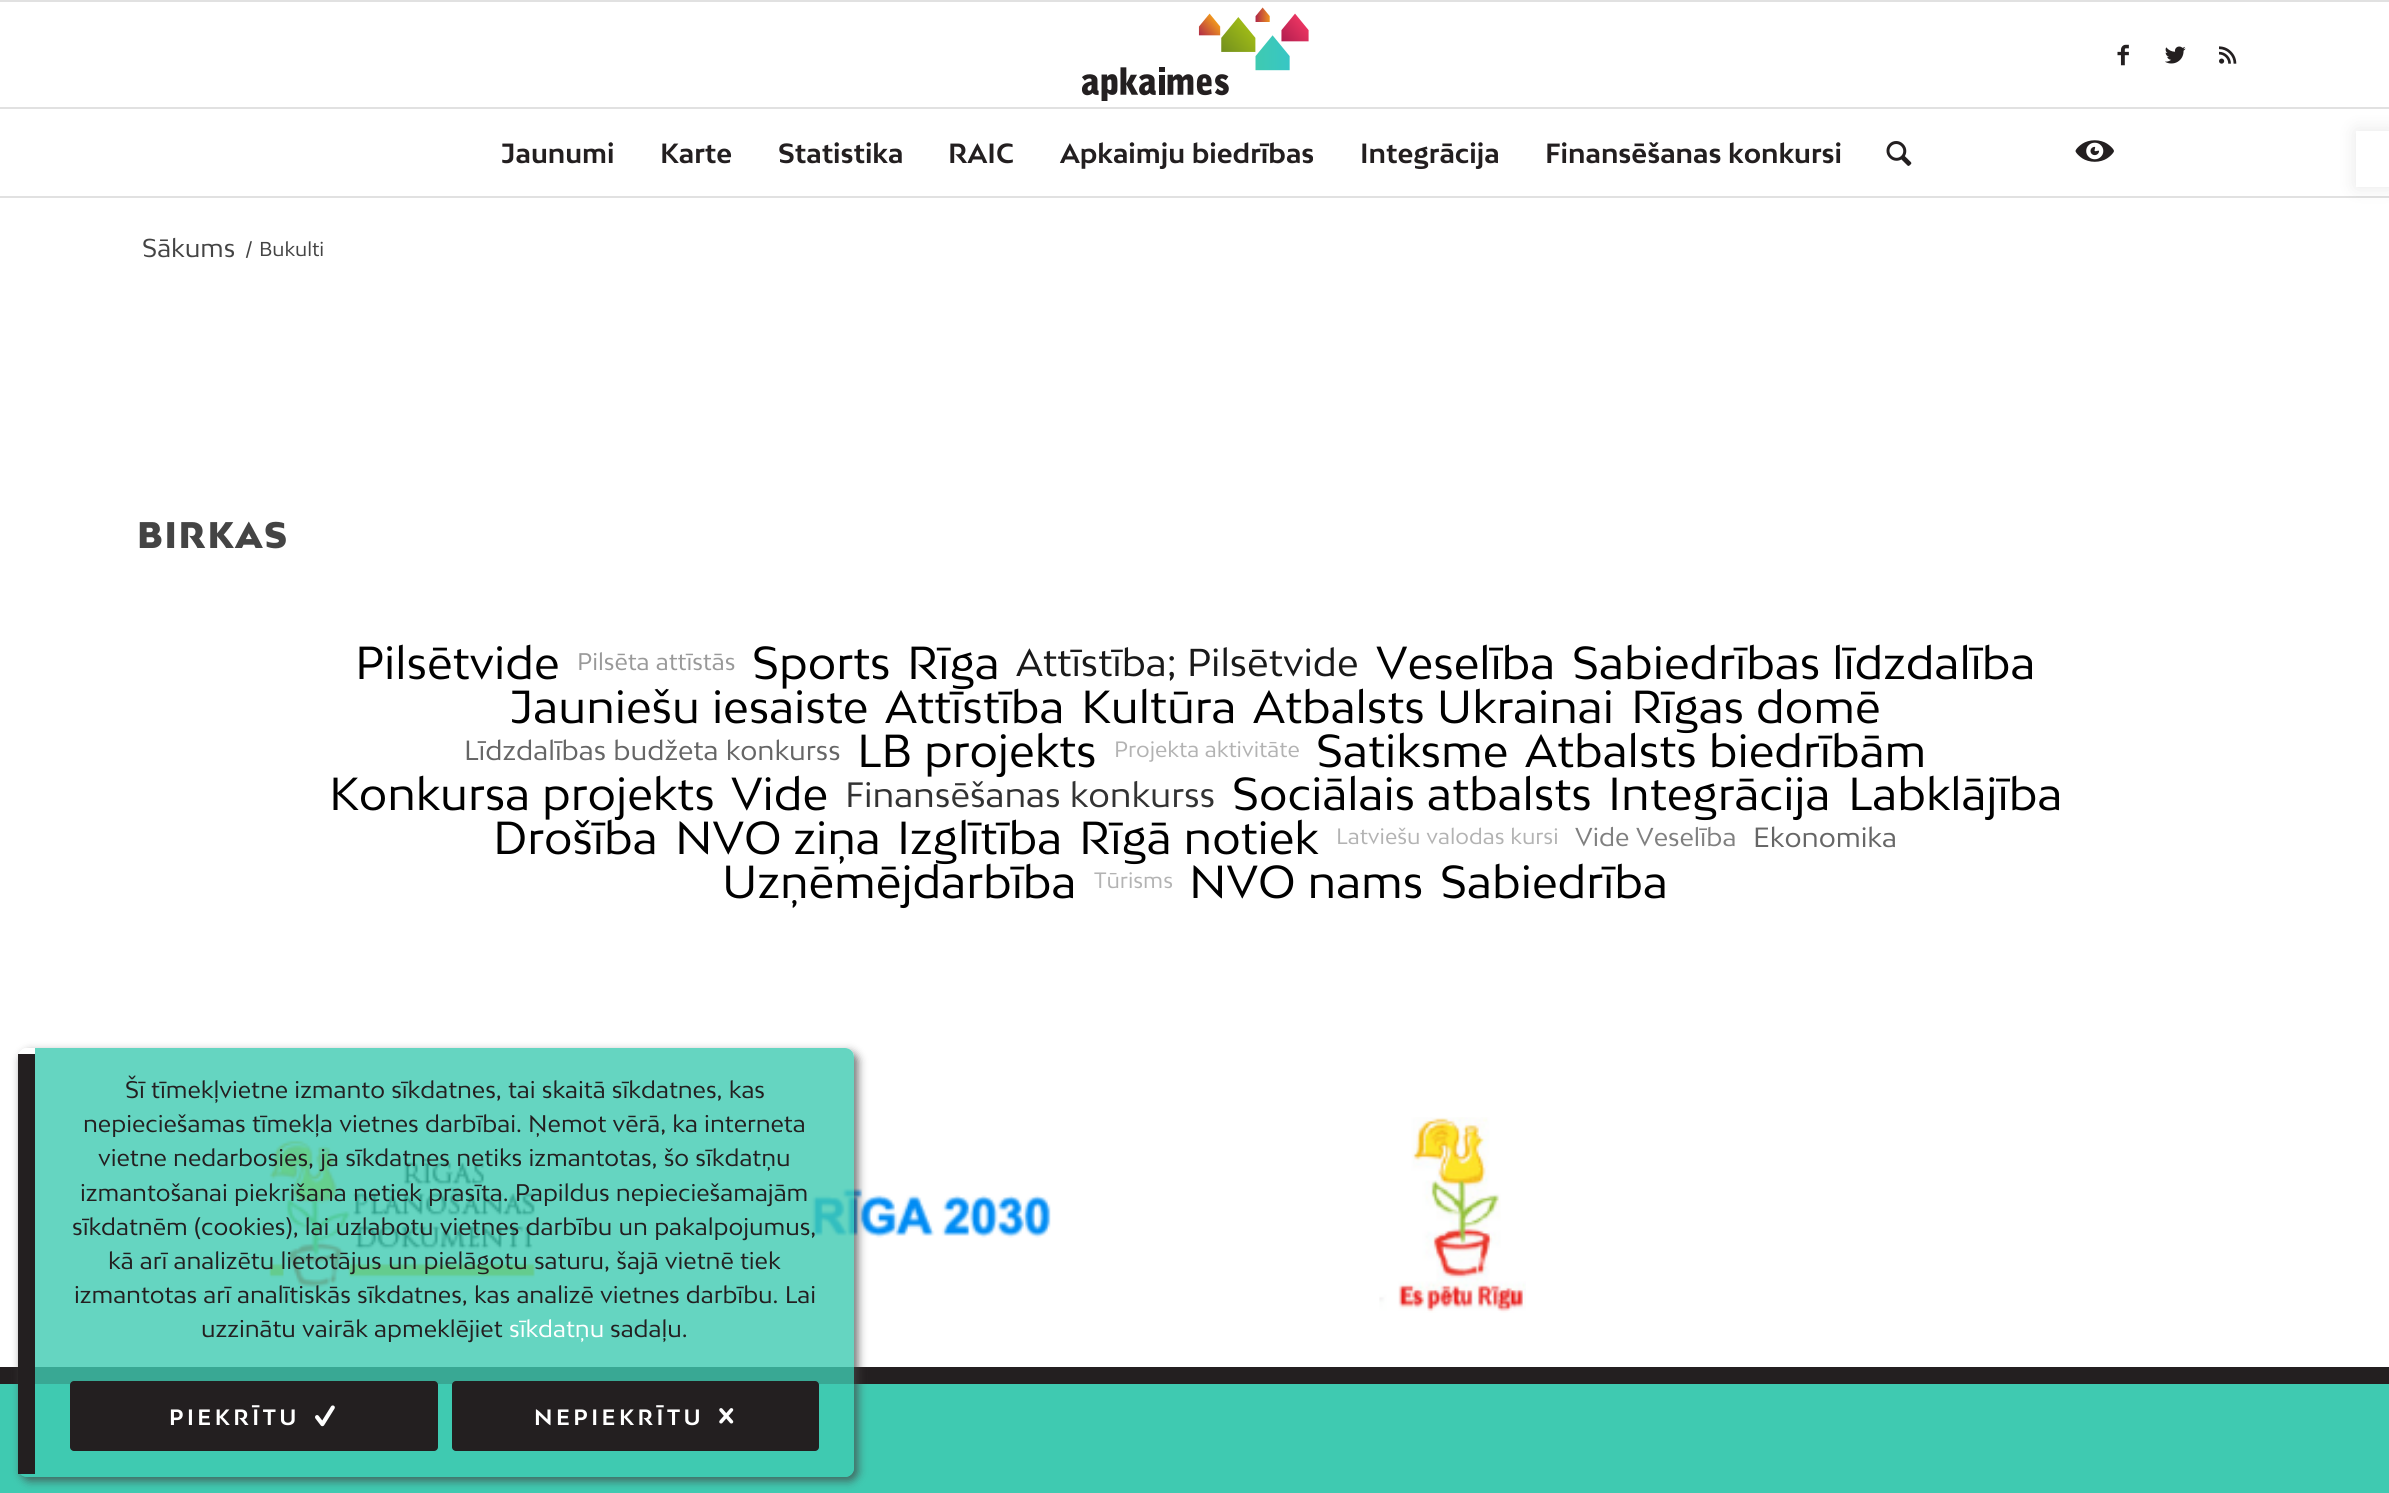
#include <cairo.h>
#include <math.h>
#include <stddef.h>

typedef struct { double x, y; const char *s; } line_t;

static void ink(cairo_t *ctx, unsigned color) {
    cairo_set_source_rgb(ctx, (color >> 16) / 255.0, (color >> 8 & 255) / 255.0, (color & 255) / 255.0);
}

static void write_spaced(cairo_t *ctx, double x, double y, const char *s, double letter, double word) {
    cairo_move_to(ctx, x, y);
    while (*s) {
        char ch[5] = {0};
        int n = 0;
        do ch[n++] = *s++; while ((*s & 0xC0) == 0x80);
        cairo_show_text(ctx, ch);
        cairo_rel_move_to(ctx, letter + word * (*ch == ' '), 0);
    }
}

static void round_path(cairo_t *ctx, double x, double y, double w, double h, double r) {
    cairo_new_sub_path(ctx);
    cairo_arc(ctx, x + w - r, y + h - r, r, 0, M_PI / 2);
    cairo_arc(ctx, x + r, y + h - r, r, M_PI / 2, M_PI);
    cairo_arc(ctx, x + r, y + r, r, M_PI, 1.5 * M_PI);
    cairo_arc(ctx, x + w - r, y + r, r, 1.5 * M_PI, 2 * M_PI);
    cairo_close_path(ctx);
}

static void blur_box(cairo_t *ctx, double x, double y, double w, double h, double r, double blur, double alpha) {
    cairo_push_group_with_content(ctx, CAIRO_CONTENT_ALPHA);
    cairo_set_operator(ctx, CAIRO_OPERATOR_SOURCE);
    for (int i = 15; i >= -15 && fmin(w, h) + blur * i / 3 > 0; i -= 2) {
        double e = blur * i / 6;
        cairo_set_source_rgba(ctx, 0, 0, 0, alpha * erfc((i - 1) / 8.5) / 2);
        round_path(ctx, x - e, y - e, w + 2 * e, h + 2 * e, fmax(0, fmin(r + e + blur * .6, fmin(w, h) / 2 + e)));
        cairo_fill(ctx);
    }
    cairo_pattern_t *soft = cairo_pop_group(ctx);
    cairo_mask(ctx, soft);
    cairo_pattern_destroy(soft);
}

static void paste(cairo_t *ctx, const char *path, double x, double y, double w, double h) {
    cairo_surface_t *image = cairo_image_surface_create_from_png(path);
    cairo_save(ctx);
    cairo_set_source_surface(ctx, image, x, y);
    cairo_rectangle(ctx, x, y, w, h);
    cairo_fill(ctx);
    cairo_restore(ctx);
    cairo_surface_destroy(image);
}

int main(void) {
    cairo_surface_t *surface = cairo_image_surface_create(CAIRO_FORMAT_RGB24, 2389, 1493);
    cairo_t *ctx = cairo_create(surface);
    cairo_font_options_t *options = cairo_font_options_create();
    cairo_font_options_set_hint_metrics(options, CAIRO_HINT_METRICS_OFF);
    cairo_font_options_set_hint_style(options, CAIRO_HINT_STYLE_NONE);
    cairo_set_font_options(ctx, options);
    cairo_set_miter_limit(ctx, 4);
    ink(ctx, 0xFFFFFF);
    cairo_paint(ctx);
    ink(ctx, 0xE1E1E1);
    cairo_rectangle(ctx, 0, 0, 2389, 2);
    cairo_fill(ctx);
    cairo_rectangle(ctx, 0, 196, 2389, 2);
    cairo_fill(ctx);
    paste(ctx, "media/1.png", 1082, 7, 227, 94);
    paste(ctx, "media/2.png", 2117, 44, 12, 22);
    paste(ctx, "media/3.png", 2165, 46, 21, 18);
    paste(ctx, "media/4.png", 2219, 46, 18, 18);
    cairo_rectangle(ctx, 0, 107, 2389, 2);
    cairo_fill(ctx);
    cairo_select_font_face(ctx, "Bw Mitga", CAIRO_FONT_SLANT_NORMAL, CAIRO_FONT_WEIGHT_BOLD);
    cairo_set_font_size(ctx, 26.25);
    ink(ctx, 0x231F20);
    {
        static const line_t items[] = {
            {501, 163, "Jaunumi"},
            {660, 163, "Karte"},
            {778, 163, "Statistika"},
            {948, 163, "RAIC"},
            {1060, 163, "Apkaimju biedrības"},
            {1360, 163, "Integrācija"},
            {1545, 163, "Finansēšanas konkursi"},
        };
        for (size_t i = 0; i < sizeof items / sizeof *items; i++) {
            cairo_move_to(ctx, items[i].x, items[i].y);
            cairo_show_text(ctx, items[i].s);
        }
    }
    paste(ctx, "media/5.png", 1886, 141, 26, 25);
    paste(ctx, "media/6.png", 2075, 140, 39, 22);
    cairo_select_font_face(ctx, "Bw Mitga", CAIRO_FONT_SLANT_NORMAL, CAIRO_FONT_WEIGHT_NORMAL);
    cairo_set_font_size(ctx, 24.5);
    ink(ctx, 0x444444);
    cairo_move_to(ctx, 142, 257);
    cairo_show_text(ctx, "Sākums");
    cairo_set_font_size(ctx, 19);
    cairo_move_to(ctx, 245, 256);
    cairo_show_text(ctx, "/");
    cairo_move_to(ctx, 259, 256);
    cairo_show_text(ctx, "Bukulti");
    cairo_select_font_face(ctx, "Bw Mitga Black", CAIRO_FONT_SLANT_NORMAL, CAIRO_FONT_WEIGHT_NORMAL);
    cairo_set_font_size(ctx, 35);
    write_spaced(ctx, 137, 548, "BIRKAS", 1.75, 0);
    cairo_select_font_face(ctx, "Bw Mitga", CAIRO_FONT_SLANT_NORMAL, CAIRO_FONT_WEIGHT_NORMAL);
    cairo_set_font_size(ctx, 43.75);
    ink(ctx, 0x000000);
    cairo_move_to(ctx, 355, 679);
    cairo_show_text(ctx, "Pilsētvide");
    cairo_set_font_size(ctx, 22.75);
    ink(ctx, 0x999999);
    cairo_move_to(ctx, 577, 670);
    cairo_show_text(ctx, "Pilsēta attīstās");
    cairo_set_font_size(ctx, 43.75);
    ink(ctx, 0x000000);
    cairo_move_to(ctx, 752, 679);
    cairo_show_text(ctx, "Sports");
    cairo_move_to(ctx, 907, 679);
    cairo_show_text(ctx, "Rīga");
    cairo_set_font_size(ctx, 36.75);
    ink(ctx, 0x1A1A1A);
    cairo_move_to(ctx, 1016, 676);
    cairo_show_text(ctx, "Attīstība; Pilsētvide");
    cairo_set_font_size(ctx, 43.75);
    ink(ctx, 0x000000);
    {
        static const line_t items[] = {
            {1376, 679, "Veselība"},
            {1572, 679, "Sabiedrības līdzdalība"},
            {510, 723, "Jauniešu iesaiste"},
            {885, 723, "Attīstība"},
            {1081, 723, "Kultūra"},
            {1253, 723, "Atbalsts Ukrainai"},
            {1631, 723, "Rīgas domē"},
        };
        for (size_t i = 0; i < sizeof items / sizeof *items; i++) {
            cairo_move_to(ctx, items[i].x, items[i].y);
            cairo_show_text(ctx, items[i].s);
        }
    }
    cairo_set_font_size(ctx, 26.25);
    ink(ctx, 0x666666);
    cairo_move_to(ctx, 464, 760);
    cairo_show_text(ctx, "Līdzdalības budžeta konkurss");
    cairo_set_font_size(ctx, 43.75);
    ink(ctx, 0x000000);
    cairo_move_to(ctx, 857, 767);
    cairo_show_text(ctx, "LB projekts");
    cairo_set_font_size(ctx, 21);
    ink(ctx, 0xB3B3B3);
    cairo_move_to(ctx, 1114, 757);
    cairo_show_text(ctx, "Projekta aktivitāte");
    cairo_set_font_size(ctx, 43.75);
    ink(ctx, 0x000000);
    {
        static const line_t items[] = {
            {1316, 767, "Satiksme"},
            {1525, 767, "Atbalsts biedrībām"},
            {329, 810, "Konkursa projekts"},
            {731, 810, "Vide"},
        };
        for (size_t i = 0; i < sizeof items / sizeof *items; i++) {
            cairo_move_to(ctx, items[i].x, items[i].y);
            cairo_show_text(ctx, items[i].s);
        }
    }
    cairo_set_font_size(ctx, 33.25);
    ink(ctx, 0x333333);
    cairo_move_to(ctx, 845, 807);
    cairo_show_text(ctx, "Finansēšanas konkurss");
    cairo_set_font_size(ctx, 43.75);
    ink(ctx, 0x000000);
    {
        static const line_t items[] = {
            {1232, 810, "Sociālais atbalsts"},
            {1608, 810, "Integrācija"},
            {1848, 810, "Labklājība"},
            {493, 854, "Drošība"},
            {675, 854, "NVO ziņa"},
            {897, 854, "Izglītība"},
            {1079, 854, "Rīgā notiek"},
        };
        for (size_t i = 0; i < sizeof items / sizeof *items; i++) {
            cairo_move_to(ctx, items[i].x, items[i].y);
            cairo_show_text(ctx, items[i].s);
        }
    }
    cairo_set_font_size(ctx, 21);
    ink(ctx, 0xB3B3B3);
    cairo_move_to(ctx, 1336, 844);
    cairo_show_text(ctx, "Latviešu valodas kursi");
    cairo_set_font_size(ctx, 24.5);
    ink(ctx, 0x808080);
    cairo_move_to(ctx, 1575, 846);
    cairo_show_text(ctx, "Vide Veselība");
    cairo_set_font_size(ctx, 26.25);
    ink(ctx, 0x666666);
    cairo_move_to(ctx, 1753, 847);
    cairo_show_text(ctx, "Ekonomika");
    cairo_set_font_size(ctx, 43.75);
    ink(ctx, 0x000000);
    cairo_move_to(ctx, 722, 898);
    cairo_show_text(ctx, "Uzņēmējdarbība");
    cairo_set_font_size(ctx, 21);
    ink(ctx, 0xB3B3B3);
    cairo_move_to(ctx, 1094, 888);
    cairo_show_text(ctx, "Tūrisms");
    cairo_set_font_size(ctx, 43.75);
    ink(ctx, 0x000000);
    cairo_move_to(ctx, 1189, 898);
    cairo_show_text(ctx, "NVO nams");
    cairo_move_to(ctx, 1440, 898);
    cairo_show_text(ctx, "Sabiedrība");
    paste(ctx, "media/7.png", 269, 1140, 266, 149);
    paste(ctx, "media/8.png", 811, 1188, 240, 50);
    paste(ctx, "media/9.png", 1379, 1117, 147, 196);
    ink(ctx, 0x3FCAB1);
    cairo_rectangle(ctx, 0, 1384, 2389, 109);
    cairo_fill(ctx);
    ink(ctx, 0x231F20);
    cairo_rectangle(ctx, 0, 1367, 2389, 17);
    cairo_fill(ctx);
    ink(ctx, 0x000000);
    blur_box(ctx, 2356, 131, 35, 56, 0, 9, 0.1);
    ink(ctx, 0xFFFFFF);
    cairo_rectangle(ctx, 2356, 131, 33, 56);
    cairo_fill(ctx);
    cairo_save(ctx);
    cairo_set_fill_rule(ctx, CAIRO_FILL_RULE_EVEN_ODD);
    cairo_new_path(ctx);
    cairo_move_to(ctx, 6, 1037);
    cairo_line_to(ctx, 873, 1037);
    cairo_line_to(ctx, 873, 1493);
    cairo_line_to(ctx, 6, 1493);
    cairo_close_path(ctx);
    cairo_move_to(ctx, 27, 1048);
    cairo_line_to(ctx, 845, 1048);
    cairo_curve_to(ctx, 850, 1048, 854, 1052, 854, 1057);
    cairo_line_to(ctx, 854, 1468);
    cairo_curve_to(ctx, 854, 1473, 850, 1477, 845, 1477);
    cairo_line_to(ctx, 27, 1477);
    cairo_curve_to(ctx, 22, 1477, 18, 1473, 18, 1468);
    cairo_line_to(ctx, 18, 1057);
    cairo_curve_to(ctx, 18, 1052, 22, 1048, 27, 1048);
    cairo_close_path(ctx);
    cairo_clip(ctx);
    ink(ctx, 0x444444);
    blur_box(ctx, 21, 1052, 837, 429, 9, 4.5, 0.75);
    cairo_restore(ctx);
    cairo_set_source_rgba(ctx, 0.247, 0.792, 0.694, 0.8);
    cairo_new_path(ctx);
    cairo_move_to(ctx, 35, 1048);
    cairo_line_to(ctx, 845, 1048);
    cairo_curve_to(ctx, 850, 1048, 854, 1052, 854, 1057);
    cairo_line_to(ctx, 854, 1468);
    cairo_curve_to(ctx, 854, 1473, 850, 1477, 845, 1477);
    cairo_line_to(ctx, 35, 1477);
    cairo_close_path(ctx);
    cairo_fill(ctx);
    ink(ctx, 0x231F20);
    cairo_rectangle(ctx, 18, 1054, 17, 420);
    cairo_fill(ctx);
    cairo_set_font_size(ctx, 22.75);
    {
        static const line_t items[] = {
            {125, 1098, "Šī tīmekļvietne izmanto sīkdatnes, tai skaitā sīkdatnes, kas"},
            {83, 1132, "nepieciešamas tīmekļa vietnes darbībai. Ņemot vērā, ka interneta"},
            {98, 1166, "vietne nedarbosies, ja sīkdatnes netiks izmantotas, šo sīkdatņu"},
            {80, 1201, "izmantošanai piekrišana netiek prasīta. Papildus nepieciešamajām"},
            {72, 1235, "sīkdatnēm (cookies), lai uzlabotu vietnes darbību un pakalpojumus,"},
            {108, 1269, "kā arī analizētu lietotājus un pielāgotu saturu, šajā vietnē tiek"},
            {74, 1303, "izmantotas arī analītiskās sīkdatnes, kas analizē vietnes darbību. Lai"},
            {201, 1337, "uzzinātu vairāk apmeklējiet"},
        };
        for (size_t i = 0; i < sizeof items / sizeof *items; i++) {
            cairo_move_to(ctx, items[i].x, items[i].y);
            cairo_show_text(ctx, items[i].s);
        }
    }
    ink(ctx, 0xFFFFFF);
    cairo_move_to(ctx, 509, 1337);
    cairo_show_text(ctx, "sīkdatņu");
    ink(ctx, 0x231F20);
    cairo_move_to(ctx, 610, 1337);
    cairo_show_text(ctx, "sadaļu.");
    round_path(ctx, 70, 1381, 368, 70, 4);
    cairo_fill(ctx);
    cairo_select_font_face(ctx, "Bw Mitga", CAIRO_FONT_SLANT_NORMAL, CAIRO_FONT_WEIGHT_BOLD);
    cairo_set_font_size(ctx, 21);
    ink(ctx, 0xFFFFFF);
    write_spaced(ctx, 169, 1425, "PIEKRĪTU", 3.5, 0);
    paste(ctx, "media/10.png", 315, 1405, 20, 22);
    ink(ctx, 0x231F20);
    round_path(ctx, 452, 1381, 367, 70, 4);
    cairo_fill(ctx);
    ink(ctx, 0xFFFFFF);
    write_spaced(ctx, 534, 1425, "NEPIEKRĪTU", 3.5, 0);
    paste(ctx, "media/11.png", 719, 1408, 15, 16);
    cairo_surface_write_to_png(surface, "image.png");
    cairo_font_options_destroy(options);
    cairo_destroy(ctx);
    cairo_surface_destroy(surface);
    return 0;
}
